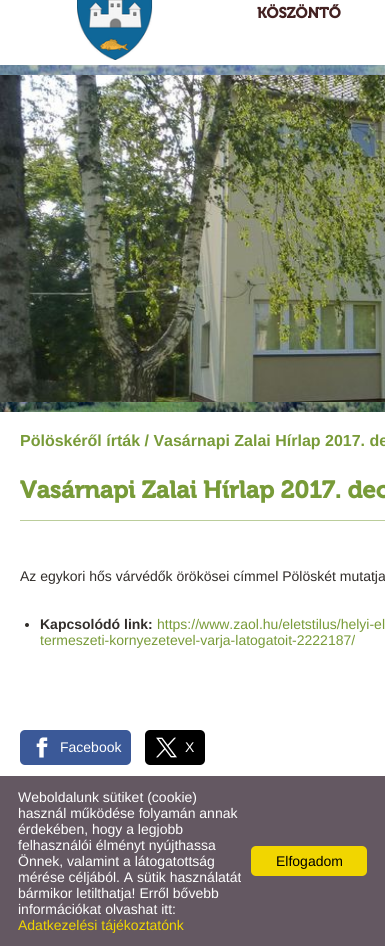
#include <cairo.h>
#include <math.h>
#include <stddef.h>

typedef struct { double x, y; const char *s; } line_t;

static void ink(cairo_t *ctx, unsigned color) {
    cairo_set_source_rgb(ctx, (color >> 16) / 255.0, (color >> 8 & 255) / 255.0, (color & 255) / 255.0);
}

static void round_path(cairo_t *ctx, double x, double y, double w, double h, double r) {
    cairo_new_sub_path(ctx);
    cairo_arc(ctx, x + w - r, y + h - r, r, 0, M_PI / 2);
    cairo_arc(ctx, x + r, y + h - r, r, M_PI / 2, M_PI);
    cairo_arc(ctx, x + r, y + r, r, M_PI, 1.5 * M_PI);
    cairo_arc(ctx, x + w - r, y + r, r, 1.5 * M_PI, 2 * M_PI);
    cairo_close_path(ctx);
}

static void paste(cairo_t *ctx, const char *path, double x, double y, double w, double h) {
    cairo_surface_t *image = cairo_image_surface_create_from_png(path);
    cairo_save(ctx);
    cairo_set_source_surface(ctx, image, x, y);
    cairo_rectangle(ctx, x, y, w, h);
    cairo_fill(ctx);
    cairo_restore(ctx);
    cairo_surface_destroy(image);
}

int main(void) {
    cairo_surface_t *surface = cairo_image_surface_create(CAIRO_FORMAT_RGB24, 385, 946);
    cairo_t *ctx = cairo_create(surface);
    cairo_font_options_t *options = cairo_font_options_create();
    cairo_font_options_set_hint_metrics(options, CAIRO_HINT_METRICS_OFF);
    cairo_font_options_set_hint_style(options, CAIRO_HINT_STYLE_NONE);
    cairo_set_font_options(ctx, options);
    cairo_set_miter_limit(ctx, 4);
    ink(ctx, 0xFFFFFF);
    cairo_paint(ctx);
    paste(ctx, "media/1.png", 0, 65, 385, 347);
    paste(ctx, "media/2.png", 77, 0, 76, 60);
    cairo_select_font_face(ctx, "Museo", CAIRO_FONT_SLANT_NORMAL, CAIRO_FONT_WEIGHT_BOLD);
    cairo_set_font_size(ctx, 15);
    ink(ctx, 0x432222);
    cairo_move_to(ctx, 257, 18);
    cairo_show_text(ctx, "KÖSZÖNTŐ");
    paste(ctx, "media/3.png", 0, 75, 385, 327);
    cairo_select_font_face(ctx, "Liberation Sans", CAIRO_FONT_SLANT_NORMAL, CAIRO_FONT_WEIGHT_BOLD);
    cairo_set_font_size(ctx, 16);
    ink(ctx, 0x789B38);
    cairo_move_to(ctx, 20, 446);
    cairo_show_text(ctx, "Pölöskéről írták / Vasárnapi Zalai Hírlap 2017. de");
    ink(ctx, 0xBBCD9B);
    cairo_rectangle(ctx, 20, 520, 365, 1);
    cairo_fill(ctx);
    cairo_select_font_face(ctx, "Museo", CAIRO_FONT_SLANT_NORMAL, CAIRO_FONT_WEIGHT_BOLD);
    cairo_set_font_size(ctx, 24);
    ink(ctx, 0x789B38);
    cairo_move_to(ctx, 20, 498);
    cairo_show_text(ctx, "Vasárnapi Zalai Hírlap 2017. dec");
    cairo_select_font_face(ctx, "Liberation Sans", CAIRO_FONT_SLANT_NORMAL, CAIRO_FONT_WEIGHT_NORMAL);
    cairo_set_font_size(ctx, 14);
    ink(ctx, 0x312D2A);
    cairo_move_to(ctx, 20, 581);
    cairo_show_text(ctx, "Az egykori hős várvédők örökösei címmel Pölöskét mutatja");
    cairo_new_path(ctx);
    cairo_arc(ctx, 27, 625, 2, 0, 2 * M_PI);
    cairo_fill(ctx);
    cairo_select_font_face(ctx, "Liberation Sans", CAIRO_FONT_SLANT_NORMAL, CAIRO_FONT_WEIGHT_BOLD);
    cairo_move_to(ctx, 40, 629);
    cairo_show_text(ctx, "Kapcsolódó link:");
    cairo_select_font_face(ctx, "Liberation Sans", CAIRO_FONT_SLANT_NORMAL, CAIRO_FONT_WEIGHT_NORMAL);
    ink(ctx, 0x789B38);
    cairo_move_to(ctx, 157, 629);
    cairo_show_text(ctx, "https://www.zaol.hu/eletstilus/helyi-el");
    cairo_move_to(ctx, 40, 645);
    cairo_show_text(ctx, "termeszeti-kornyezetevel-varja-latogatoit-2222187/");
    ink(ctx, 0x3B5998);
    round_path(ctx, 20, 730, 111, 35, 5);
    cairo_fill(ctx);
    paste(ctx, "media/4.png", 36, 737, 12, 21);
    ink(ctx, 0xFFFFFF);
    cairo_move_to(ctx, 60, 752);
    cairo_show_text(ctx, "Facebook");
    ink(ctx, 0x000000);
    round_path(ctx, 145, 730, 60, 35, 5);
    cairo_fill(ctx);
    paste(ctx, "media/5.png", 156, 737, 21, 21);
    ink(ctx, 0xFFFFFF);
    cairo_move_to(ctx, 185, 752);
    cairo_show_text(ctx, "X");
    ink(ctx, 0x645862);
    cairo_rectangle(ctx, 0, 776, 385, 170);
    cairo_fill(ctx);
    ink(ctx, 0xFFFFFF);
    {
        static const line_t items[] = {
            {18, 802, "Weboldalunk sütiket (cookie)"},
            {18, 818, "használ működése folyamán annak"},
            {18, 834, "érdekében, hogy a legjobb"},
            {18, 850, "felhasználói élményt nyújthassa"},
            {18, 866, "Önnek, valamint a látogatottság"},
            {18, 882, "mérése céljából. A sütik használatát"},
            {18, 898, "bármikor letilthatja! Erről bővebb"},
            {18, 914, "információkat olvashat itt:"},
        };
        for (size_t i = 0; i < sizeof items / sizeof *items; i++) {
            cairo_move_to(ctx, items[i].x, items[i].y);
            cairo_show_text(ctx, items[i].s);
        }
    }
    ink(ctx, 0xF1D600);
    cairo_move_to(ctx, 18, 930);
    cairo_show_text(ctx, "Adatkezelési tájékoztatónk");
    round_path(ctx, 251, 846, 116, 30, 5);
    cairo_fill(ctx);
    ink(ctx, 0x000000);
    cairo_move_to(ctx, 276, 866);
    cairo_show_text(ctx, "Elfogadom");
    cairo_surface_write_to_png(surface, "image.png");
    cairo_font_options_destroy(options);
    cairo_destroy(ctx);
    cairo_surface_destroy(surface);
    return 0;
}
